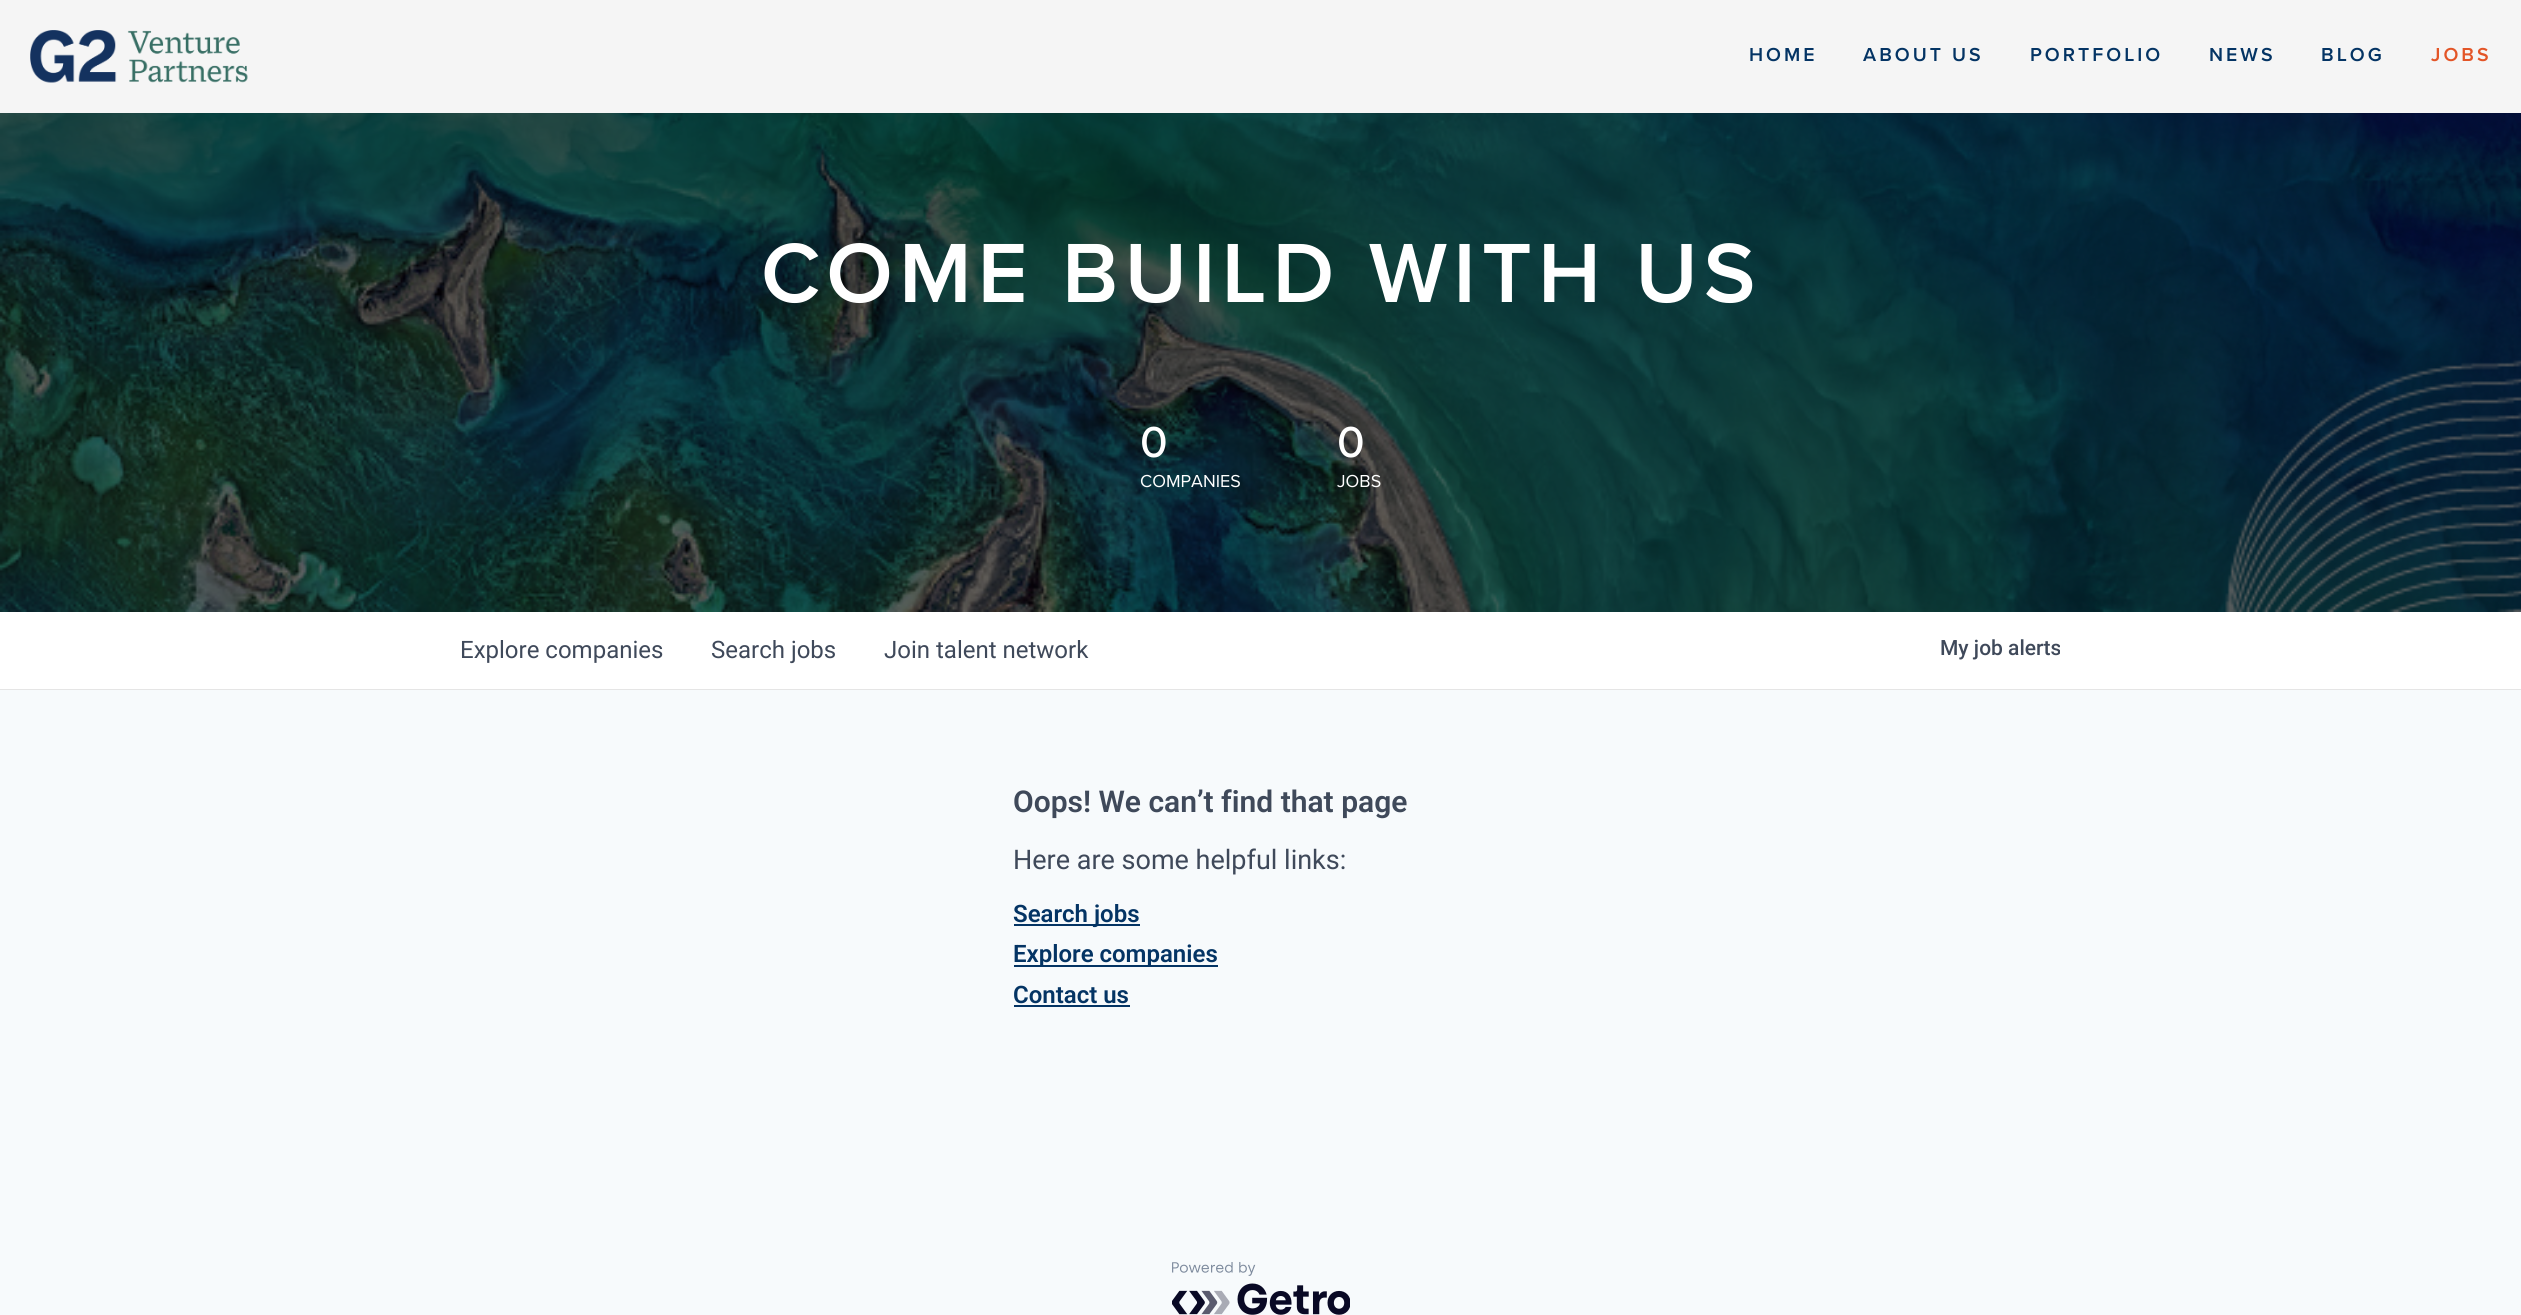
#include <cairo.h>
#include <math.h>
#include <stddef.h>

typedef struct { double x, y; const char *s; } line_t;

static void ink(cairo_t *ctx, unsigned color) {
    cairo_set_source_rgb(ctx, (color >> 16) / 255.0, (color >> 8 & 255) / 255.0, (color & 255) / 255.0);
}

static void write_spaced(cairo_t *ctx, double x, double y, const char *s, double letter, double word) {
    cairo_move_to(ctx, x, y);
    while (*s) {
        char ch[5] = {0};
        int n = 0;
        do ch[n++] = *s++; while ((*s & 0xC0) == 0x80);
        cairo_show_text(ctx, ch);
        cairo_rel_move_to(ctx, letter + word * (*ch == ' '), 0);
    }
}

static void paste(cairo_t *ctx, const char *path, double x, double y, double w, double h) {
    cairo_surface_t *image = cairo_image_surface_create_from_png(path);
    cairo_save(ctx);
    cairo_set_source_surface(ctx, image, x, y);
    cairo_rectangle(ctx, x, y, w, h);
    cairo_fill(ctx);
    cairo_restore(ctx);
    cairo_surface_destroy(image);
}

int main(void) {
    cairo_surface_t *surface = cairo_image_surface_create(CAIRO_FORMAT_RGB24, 2521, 1315);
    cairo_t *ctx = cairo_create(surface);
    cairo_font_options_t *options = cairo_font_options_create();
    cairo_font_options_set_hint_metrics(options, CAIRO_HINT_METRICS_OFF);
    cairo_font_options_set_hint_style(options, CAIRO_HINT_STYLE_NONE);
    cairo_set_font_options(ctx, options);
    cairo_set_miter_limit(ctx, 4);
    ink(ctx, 0xF7FAFC);
    cairo_paint(ctx);
    ink(ctx, 0xF5F5F5);
    cairo_rectangle(ctx, 0, 0, 2521, 113);
    cairo_fill(ctx);
    paste(ctx, "media/1.png", 30, 30, 218, 53);
    cairo_select_font_face(ctx, "Proxima Nova SemiBold", CAIRO_FONT_SLANT_NORMAL, CAIRO_FONT_WEIGHT_NORMAL);
    cairo_set_font_size(ctx, 19.5);
    ink(ctx, 0x043464);
    {
        static const line_t items[] = {
            {1749, 61, "HOME"},
            {1863, 61, "ABOUT US"},
            {2030, 61, "PORTFOLIO"},
            {2209, 61, "NEWS"},
            {2321, 61, "BLOG"},
        };
        for (size_t i = 0; i < sizeof items / sizeof *items; i++) {
            write_spaced(ctx, items[i].x, items[i].y, items[i].s, 3, 0);
        }
    }
    ink(ctx, 0xE35527);
    write_spaced(ctx, 2431, 61, "JOBS", 3, 0);
    paste(ctx, "media/2.png", 0, 113, 2521, 499);
    cairo_set_font_size(ctx, 87);
    ink(ctx, 0xFFFFFF);
    write_spaced(ctx, 761, 302, "COME BUILD WITH US", 6, 0);
    cairo_select_font_face(ctx, "Proxima Nova Medium", CAIRO_FONT_SLANT_NORMAL, CAIRO_FONT_WEIGHT_NORMAL);
    cairo_set_font_size(ctx, 45);
    cairo_move_to(ctx, 1140, 457);
    cairo_show_text(ctx, "0");
    cairo_select_font_face(ctx, "Proxima Nova", CAIRO_FONT_SLANT_NORMAL, CAIRO_FONT_WEIGHT_NORMAL);
    cairo_set_font_size(ctx, 18);
    cairo_move_to(ctx, 1140, 487);
    cairo_show_text(ctx, "COMPANIES");
    cairo_select_font_face(ctx, "Proxima Nova Medium", CAIRO_FONT_SLANT_NORMAL, CAIRO_FONT_WEIGHT_NORMAL);
    cairo_set_font_size(ctx, 45);
    cairo_move_to(ctx, 1337, 457);
    cairo_show_text(ctx, "0");
    cairo_select_font_face(ctx, "Proxima Nova", CAIRO_FONT_SLANT_NORMAL, CAIRO_FONT_WEIGHT_NORMAL);
    cairo_set_font_size(ctx, 18);
    cairo_move_to(ctx, 1337, 487);
    cairo_show_text(ctx, "JOBS");
    ink(ctx, 0xE5E5E5);
    cairo_new_path(ctx);
    cairo_move_to(ctx, 0, 688);
    cairo_line_to(ctx, 0, 690);
    cairo_line_to(ctx, 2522, 690);
    cairo_line_to(ctx, 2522, 614);
    cairo_line_to(ctx, 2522, 688);
    cairo_close_path(ctx);
    cairo_fill(ctx);
    ink(ctx, 0xFFFFFF);
    cairo_rectangle(ctx, 0, 612, 2521, 77);
    cairo_fill(ctx);
    cairo_select_font_face(ctx, "Roboto", CAIRO_FONT_SLANT_NORMAL, CAIRO_FONT_WEIGHT_NORMAL);
    cairo_set_font_size(ctx, 24);
    ink(ctx, 0x3F495A);
    {
        static const line_t items[] = {
            {460, 658, "Explore companies"},
            {711, 658, "Search jobs"},
            {884, 658, "Join talent network"},
        };
        for (size_t i = 0; i < sizeof items / sizeof *items; i++) {
            cairo_move_to(ctx, items[i].x, items[i].y);
            cairo_show_text(ctx, items[i].s);
        }
    }
    cairo_select_font_face(ctx, "Roboto Medium", CAIRO_FONT_SLANT_NORMAL, CAIRO_FONT_WEIGHT_NORMAL);
    cairo_set_font_size(ctx, 21);
    cairo_move_to(ctx, 1940, 655);
    cairo_show_text(ctx, "My job alerts");
    cairo_select_font_face(ctx, "Roboto SemiBold", CAIRO_FONT_SLANT_NORMAL, CAIRO_FONT_WEIGHT_NORMAL);
    cairo_set_font_size(ctx, 30);
    cairo_move_to(ctx, 1013, 812);
    cairo_show_text(ctx, "Oops! We can’t find that page");
    cairo_select_font_face(ctx, "Roboto", CAIRO_FONT_SLANT_NORMAL, CAIRO_FONT_WEIGHT_NORMAL);
    cairo_set_font_size(ctx, 27);
    cairo_move_to(ctx, 1013, 869);
    cairo_show_text(ctx, "Here are some helpful links:");
    ink(ctx, 0x043464);
    cairo_rectangle(ctx, 1014, 924, 126, 2);
    cairo_fill(ctx);
    cairo_select_font_face(ctx, "Roboto SemiBold", CAIRO_FONT_SLANT_NORMAL, CAIRO_FONT_WEIGHT_NORMAL);
    cairo_set_font_size(ctx, 24);
    cairo_move_to(ctx, 1013, 922);
    cairo_show_text(ctx, "Search jobs");
    cairo_rectangle(ctx, 1014, 965, 204, 2);
    cairo_fill(ctx);
    cairo_move_to(ctx, 1013, 962);
    cairo_show_text(ctx, "Explore companies");
    cairo_move_to(ctx, 1013, 1003);
    cairo_show_text(ctx, "Contact us");
    cairo_rectangle(ctx, 1014, 1005, 116, 2);
    cairo_fill(ctx);
    paste(ctx, "media/3.png", 1172, 1262, 178, 53);
    cairo_surface_write_to_png(surface, "image.png");
    cairo_font_options_destroy(options);
    cairo_destroy(ctx);
    cairo_surface_destroy(surface);
    return 0;
}
